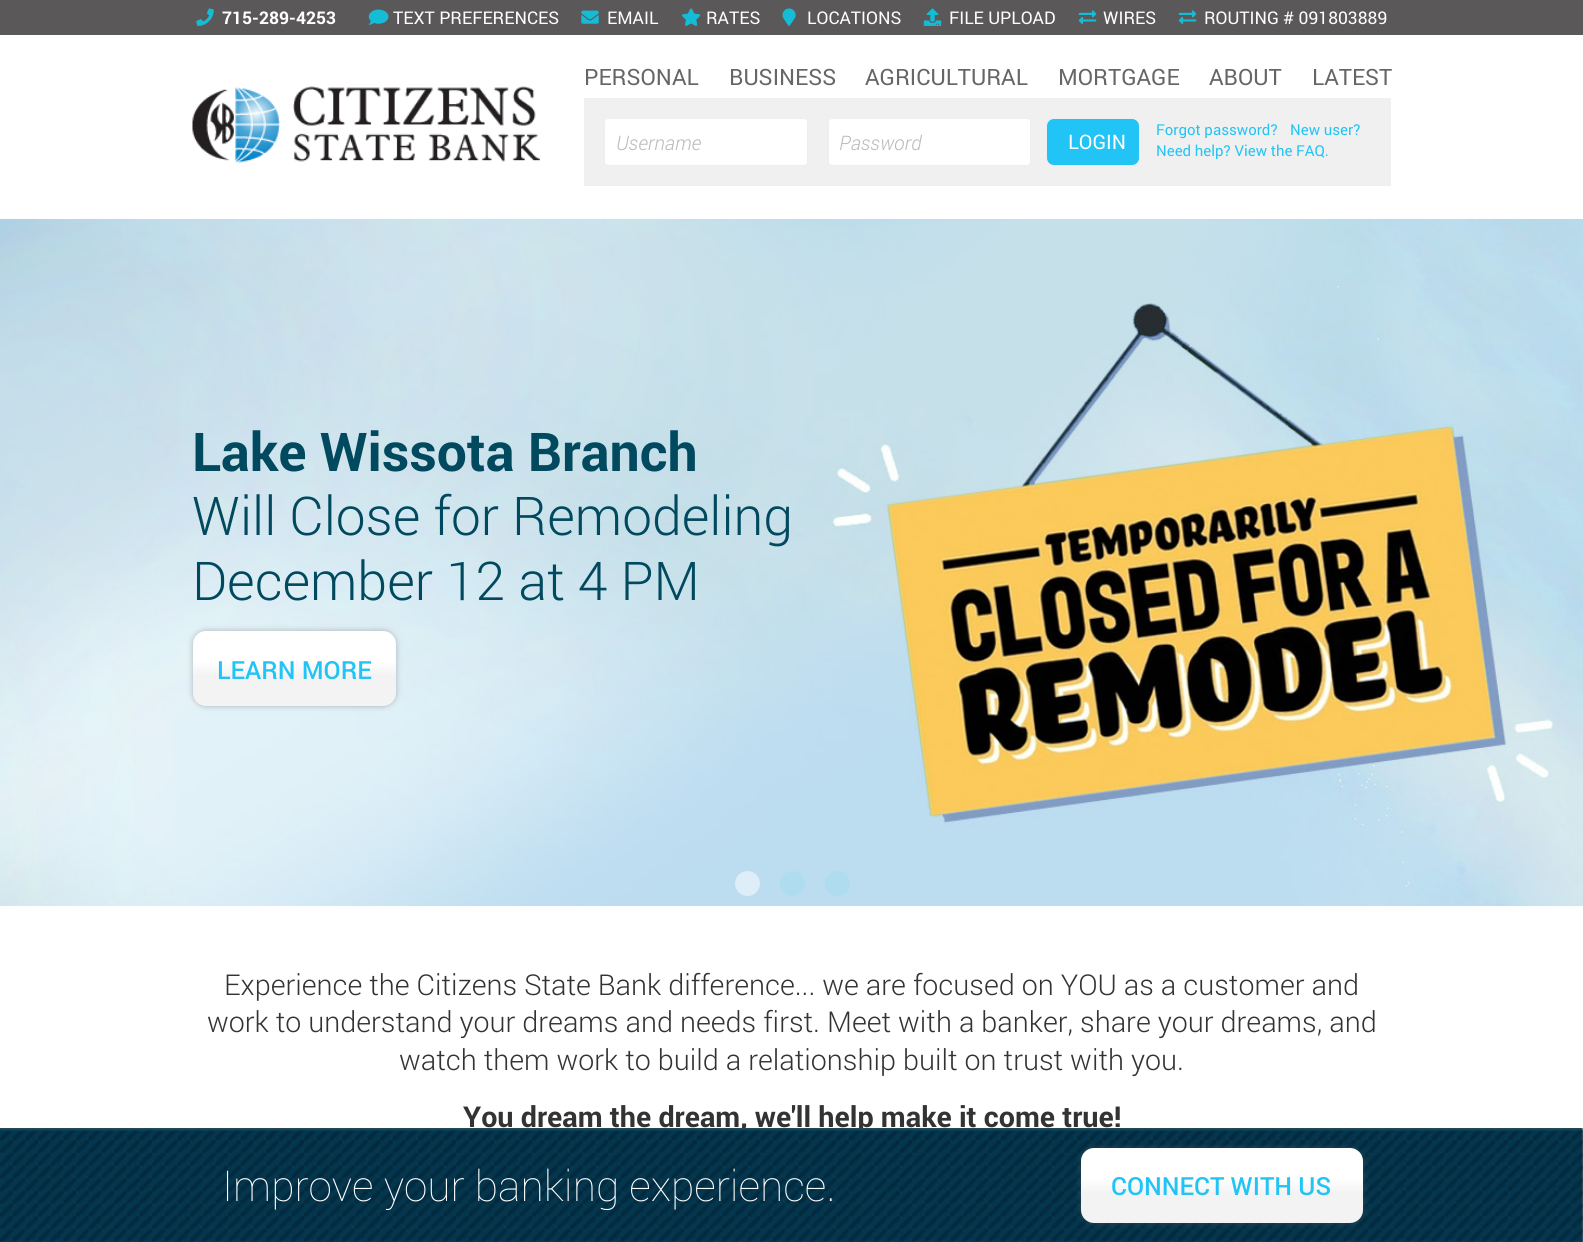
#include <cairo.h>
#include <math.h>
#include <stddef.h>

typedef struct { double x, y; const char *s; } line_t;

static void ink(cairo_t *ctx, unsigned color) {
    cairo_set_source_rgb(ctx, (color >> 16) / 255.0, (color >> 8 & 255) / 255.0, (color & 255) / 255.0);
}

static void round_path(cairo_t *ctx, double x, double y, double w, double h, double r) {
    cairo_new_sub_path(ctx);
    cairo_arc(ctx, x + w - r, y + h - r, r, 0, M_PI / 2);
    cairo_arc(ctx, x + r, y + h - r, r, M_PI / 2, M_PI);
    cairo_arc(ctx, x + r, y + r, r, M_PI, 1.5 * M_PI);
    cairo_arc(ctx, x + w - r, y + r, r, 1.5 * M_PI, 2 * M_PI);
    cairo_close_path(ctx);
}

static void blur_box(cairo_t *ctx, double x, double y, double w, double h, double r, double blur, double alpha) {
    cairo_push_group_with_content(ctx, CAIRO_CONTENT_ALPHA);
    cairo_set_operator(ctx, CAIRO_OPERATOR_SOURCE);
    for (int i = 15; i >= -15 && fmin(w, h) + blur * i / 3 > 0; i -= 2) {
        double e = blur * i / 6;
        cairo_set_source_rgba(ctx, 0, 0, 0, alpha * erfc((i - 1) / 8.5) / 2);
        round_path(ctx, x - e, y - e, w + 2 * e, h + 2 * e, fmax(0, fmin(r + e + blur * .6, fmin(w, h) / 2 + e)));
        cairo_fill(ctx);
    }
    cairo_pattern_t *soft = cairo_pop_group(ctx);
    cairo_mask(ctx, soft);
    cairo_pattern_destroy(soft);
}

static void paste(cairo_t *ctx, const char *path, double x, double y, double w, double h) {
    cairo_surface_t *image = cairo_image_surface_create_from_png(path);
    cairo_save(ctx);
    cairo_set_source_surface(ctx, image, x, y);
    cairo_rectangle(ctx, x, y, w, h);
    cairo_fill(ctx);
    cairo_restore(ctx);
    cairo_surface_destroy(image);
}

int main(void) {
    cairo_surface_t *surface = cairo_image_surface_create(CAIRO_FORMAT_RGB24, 1583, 1242);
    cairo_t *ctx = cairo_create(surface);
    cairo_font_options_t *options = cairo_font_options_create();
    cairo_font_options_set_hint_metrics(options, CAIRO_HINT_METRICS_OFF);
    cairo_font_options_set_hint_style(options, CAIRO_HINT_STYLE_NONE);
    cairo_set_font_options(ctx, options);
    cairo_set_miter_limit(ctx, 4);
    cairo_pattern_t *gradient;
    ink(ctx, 0xFFFFFF);
    cairo_paint(ctx);
    cairo_save(ctx);
    cairo_set_fill_rule(ctx, CAIRO_FILL_RULE_EVEN_ODD);
    cairo_new_path(ctx);
    cairo_move_to(ctx, 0, 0);
    cairo_line_to(ctx, 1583, 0);
    cairo_line_to(ctx, 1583, 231);
    cairo_line_to(ctx, 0, 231);
    cairo_close_path(ctx);
    cairo_move_to(ctx, 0, 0);
    cairo_line_to(ctx, 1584, 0);
    cairo_line_to(ctx, 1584, 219);
    cairo_line_to(ctx, 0, 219);
    cairo_close_path(ctx);
    cairo_clip(ctx);
    ink(ctx, 0x000000);
    blur_box(ctx, 0, 3, 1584, 218, 0, 3, 0.2);
    cairo_restore(ctx);
    ink(ctx, 0x5A5858);
    cairo_rectangle(ctx, 0, 0, 1583, 35);
    cairo_fill(ctx);
    paste(ctx, "media/1.png", 196, 8, 18, 18);
    cairo_select_font_face(ctx, "Roboto", CAIRO_FONT_SLANT_NORMAL, CAIRO_FONT_WEIGHT_BOLD);
    cairo_set_font_size(ctx, 17.5);
    ink(ctx, 0xFFFFFF);
    cairo_move_to(ctx, 222, 24);
    cairo_show_text(ctx, "715-289-4253");
    paste(ctx, "media/2.png", 368, 9, 21, 16);
    cairo_select_font_face(ctx, "Roboto", CAIRO_FONT_SLANT_NORMAL, CAIRO_FONT_WEIGHT_NORMAL);
    cairo_move_to(ctx, 393, 24);
    cairo_show_text(ctx, "TEXT PREFERENCES");
    paste(ctx, "media/3.png", 581, 10, 18, 14);
    cairo_move_to(ctx, 607, 24);
    cairo_show_text(ctx, "EMAIL");
    paste(ctx, "media/4.png", 682, 8, 19, 18);
    cairo_move_to(ctx, 706, 24);
    cairo_show_text(ctx, "RATES");
    paste(ctx, "media/5.png", 782, 8, 14, 18);
    cairo_move_to(ctx, 807, 24);
    cairo_show_text(ctx, "LOCATIONS");
    paste(ctx, "media/6.png", 923, 8, 19, 18);
    cairo_move_to(ctx, 949, 24);
    cairo_show_text(ctx, "FILE UPLOAD");
    paste(ctx, "media/7.png", 1078, 10, 19, 14);
    cairo_move_to(ctx, 1103, 24);
    cairo_show_text(ctx, "WIRES");
    paste(ctx, "media/7.png", 1178, 10, 19, 14);
    cairo_move_to(ctx, 1204, 24);
    cairo_show_text(ctx, "ROUTING # 091803889");
    paste(ctx, "media/8.png", 192, 86, 348, 77);
    cairo_set_font_size(ctx, 22.5);
    ink(ctx, 0x666666);
    {
        static const line_t items[] = {
            {584, 85, "PERSONAL"},
            {729, 85, "BUSINESS"},
            {865, 85, "AGRICULTURAL"},
            {1058, 85, "MORTGAGE"},
            {1209, 85, "ABOUT"},
            {1312, 85, "LATEST"},
        };
        for (size_t i = 0; i < sizeof items / sizeof *items; i++) {
            cairo_move_to(ctx, items[i].x, items[i].y);
            cairo_show_text(ctx, items[i].s);
        }
    }
    ink(ctx, 0xF1F0F0);
    cairo_rectangle(ctx, 584, 98, 807, 88);
    cairo_fill(ctx);
    ink(ctx, 0xFFFFFF);
    round_path(ctx, 604.5, 118.5, 203, 47, 3.5);
    cairo_fill_preserve(ctx);
    ink(ctx, 0xEEEEEE);
    cairo_set_line_width(ctx, 1);
    cairo_stroke(ctx);
    cairo_select_font_face(ctx, "Roboto Light", CAIRO_FONT_SLANT_ITALIC, CAIRO_FONT_WEIGHT_NORMAL);
    cairo_set_font_size(ctx, 20);
    ink(ctx, 0xBABABA);
    cairo_move_to(ctx, 616, 150);
    cairo_show_text(ctx, "Username");
    ink(ctx, 0xFFFFFF);
    round_path(ctx, 828.5, 118.5, 202, 47, 3.5);
    cairo_fill_preserve(ctx);
    ink(ctx, 0xEEEEEE);
    cairo_stroke(ctx);
    ink(ctx, 0xBABABA);
    cairo_move_to(ctx, 839, 150);
    cairo_show_text(ctx, "Password");
    ink(ctx, 0x21C4F4);
    round_path(ctx, 1046.5, 118.5, 93, 47, 7.5);
    cairo_fill_preserve(ctx);
    ink(ctx, 0xEEEEEE);
    cairo_stroke(ctx);
    cairo_select_font_face(ctx, "Roboto", CAIRO_FONT_SLANT_NORMAL, CAIRO_FONT_WEIGHT_NORMAL);
    ink(ctx, 0xFFFFFF);
    cairo_move_to(ctx, 1068, 149);
    cairo_show_text(ctx, "LOGIN");
    cairo_set_font_size(ctx, 15);
    ink(ctx, 0x21C4F4);
    {
        static const line_t items[] = {
            {1156, 135, "Forgot password?"},
            {1290, 135, "New user?"},
            {1156, 156, "Need help? View the FAQ."},
        };
        for (size_t i = 0; i < sizeof items / sizeof *items; i++) {
            cairo_move_to(ctx, items[i].x, items[i].y);
            cairo_show_text(ctx, items[i].s);
        }
    }
    paste(ctx, "media/9.png", 0, 218, 1583, 689);
    cairo_select_font_face(ctx, "Roboto", CAIRO_FONT_SLANT_NORMAL, CAIRO_FONT_WEIGHT_BOLD);
    cairo_set_font_size(ctx, 53.5);
    ink(ctx, 0x01495E);
    cairo_move_to(ctx, 192, 471);
    cairo_show_text(ctx, "Lake Wissota Branch");
    cairo_select_font_face(ctx, "Roboto Light", CAIRO_FONT_SLANT_NORMAL, CAIRO_FONT_WEIGHT_NORMAL);
    cairo_move_to(ctx, 192, 535);
    cairo_show_text(ctx, "Will Close for Remodeling");
    cairo_move_to(ctx, 192, 600);
    cairo_show_text(ctx, "December 12 at 4 PM");
    ink(ctx, 0x646464);
    blur_box(ctx, 193, 631, 203, 75, 13, 3, 0.45);
    gradient = cairo_pattern_create_linear(294, 631, 294, 706);
    cairo_pattern_add_color_stop_rgba(gradient, 0, 1, 1, 1, 1);
    cairo_pattern_add_color_stop_rgba(gradient, 0.4, 1, 1, 1, 1);
    cairo_pattern_add_color_stop_rgba(gradient, 0.6, 0.953, 0.953, 0.953, 1);
    cairo_pattern_add_color_stop_rgba(gradient, 1, 0.953, 0.953, 0.953, 1);
    cairo_set_source(ctx, gradient);
    cairo_pattern_destroy(gradient);
    round_path(ctx, 193, 631, 203, 75, 13);
    cairo_fill(ctx);
    cairo_select_font_face(ctx, "Roboto Medium", CAIRO_FONT_SLANT_NORMAL, CAIRO_FONT_WEIGHT_NORMAL);
    cairo_set_font_size(ctx, 25);
    ink(ctx, 0x21C4F4);
    cairo_move_to(ctx, 217, 679);
    cairo_show_text(ctx, "LEARN MORE");
    ink(ctx, 0xDEEEF8);
    cairo_new_path(ctx);
    cairo_arc(ctx, 747.5, 883.5, 12.5, 0, 2 * M_PI);
    cairo_fill(ctx);
    ink(ctx, 0xAFDCEF);
    cairo_arc(ctx, 792.5, 883.5, 12.5, 0, 2 * M_PI);
    cairo_fill(ctx);
    cairo_arc(ctx, 837.5, 883.5, 12.5, 0, 2 * M_PI);
    cairo_fill(ctx);
    cairo_select_font_face(ctx, "Roboto Light", CAIRO_FONT_SLANT_NORMAL, CAIRO_FONT_WEIGHT_NORMAL);
    cairo_set_font_size(ctx, 28.75);
    ink(ctx, 0x333333);
    {
        static const line_t items[] = {
            {224, 995, "Experience the Citizens State Bank difference... we are focused on YOU as a customer and"},
            {207, 1032, "work to understand your dreams and needs first. Meet with a banker, share your dreams, and"},
            {399, 1070, "watch them work to build a relationship built on trust with you."},
        };
        for (size_t i = 0; i < sizeof items / sizeof *items; i++) {
            cairo_move_to(ctx, items[i].x, items[i].y);
            cairo_show_text(ctx, items[i].s);
        }
    }
    cairo_select_font_face(ctx, "Roboto", CAIRO_FONT_SLANT_NORMAL, CAIRO_FONT_WEIGHT_BOLD);
    cairo_move_to(ctx, 463, 1127);
    cairo_show_text(ctx, "You dream the dream, we'll help make it come true!");
    paste(ctx, "media/10.png", 0, 1128, 1583, 114);
    cairo_select_font_face(ctx, "Roboto Thin", CAIRO_FONT_SLANT_NORMAL, CAIRO_FONT_WEIGHT_NORMAL);
    cairo_set_font_size(ctx, 42.5);
    ink(ctx, 0xFFFFFF);
    cairo_move_to(ctx, 222, 1201);
    cairo_show_text(ctx, "Improve your banking experience.");
    ink(ctx, 0x646464);
    blur_box(ctx, 1081, 1148, 282, 75, 13, 3, 0.45);
    gradient = cairo_pattern_create_linear(1222, 1148, 1222, 1223);
    cairo_pattern_add_color_stop_rgba(gradient, 0, 1, 1, 1, 1);
    cairo_pattern_add_color_stop_rgba(gradient, 0.4, 1, 1, 1, 1);
    cairo_pattern_add_color_stop_rgba(gradient, 0.6, 0.953, 0.953, 0.953, 1);
    cairo_pattern_add_color_stop_rgba(gradient, 1, 0.953, 0.953, 0.953, 1);
    cairo_set_source(ctx, gradient);
    cairo_pattern_destroy(gradient);
    round_path(ctx, 1081, 1148, 282, 75, 13);
    cairo_fill(ctx);
    cairo_select_font_face(ctx, "Roboto Medium", CAIRO_FONT_SLANT_NORMAL, CAIRO_FONT_WEIGHT_NORMAL);
    cairo_set_font_size(ctx, 25);
    ink(ctx, 0x21C4F4);
    cairo_move_to(ctx, 1111, 1195);
    cairo_show_text(ctx, "CONNECT WITH US");
    cairo_surface_write_to_png(surface, "image.png");
    cairo_font_options_destroy(options);
    cairo_destroy(ctx);
    cairo_surface_destroy(surface);
    return 0;
}
